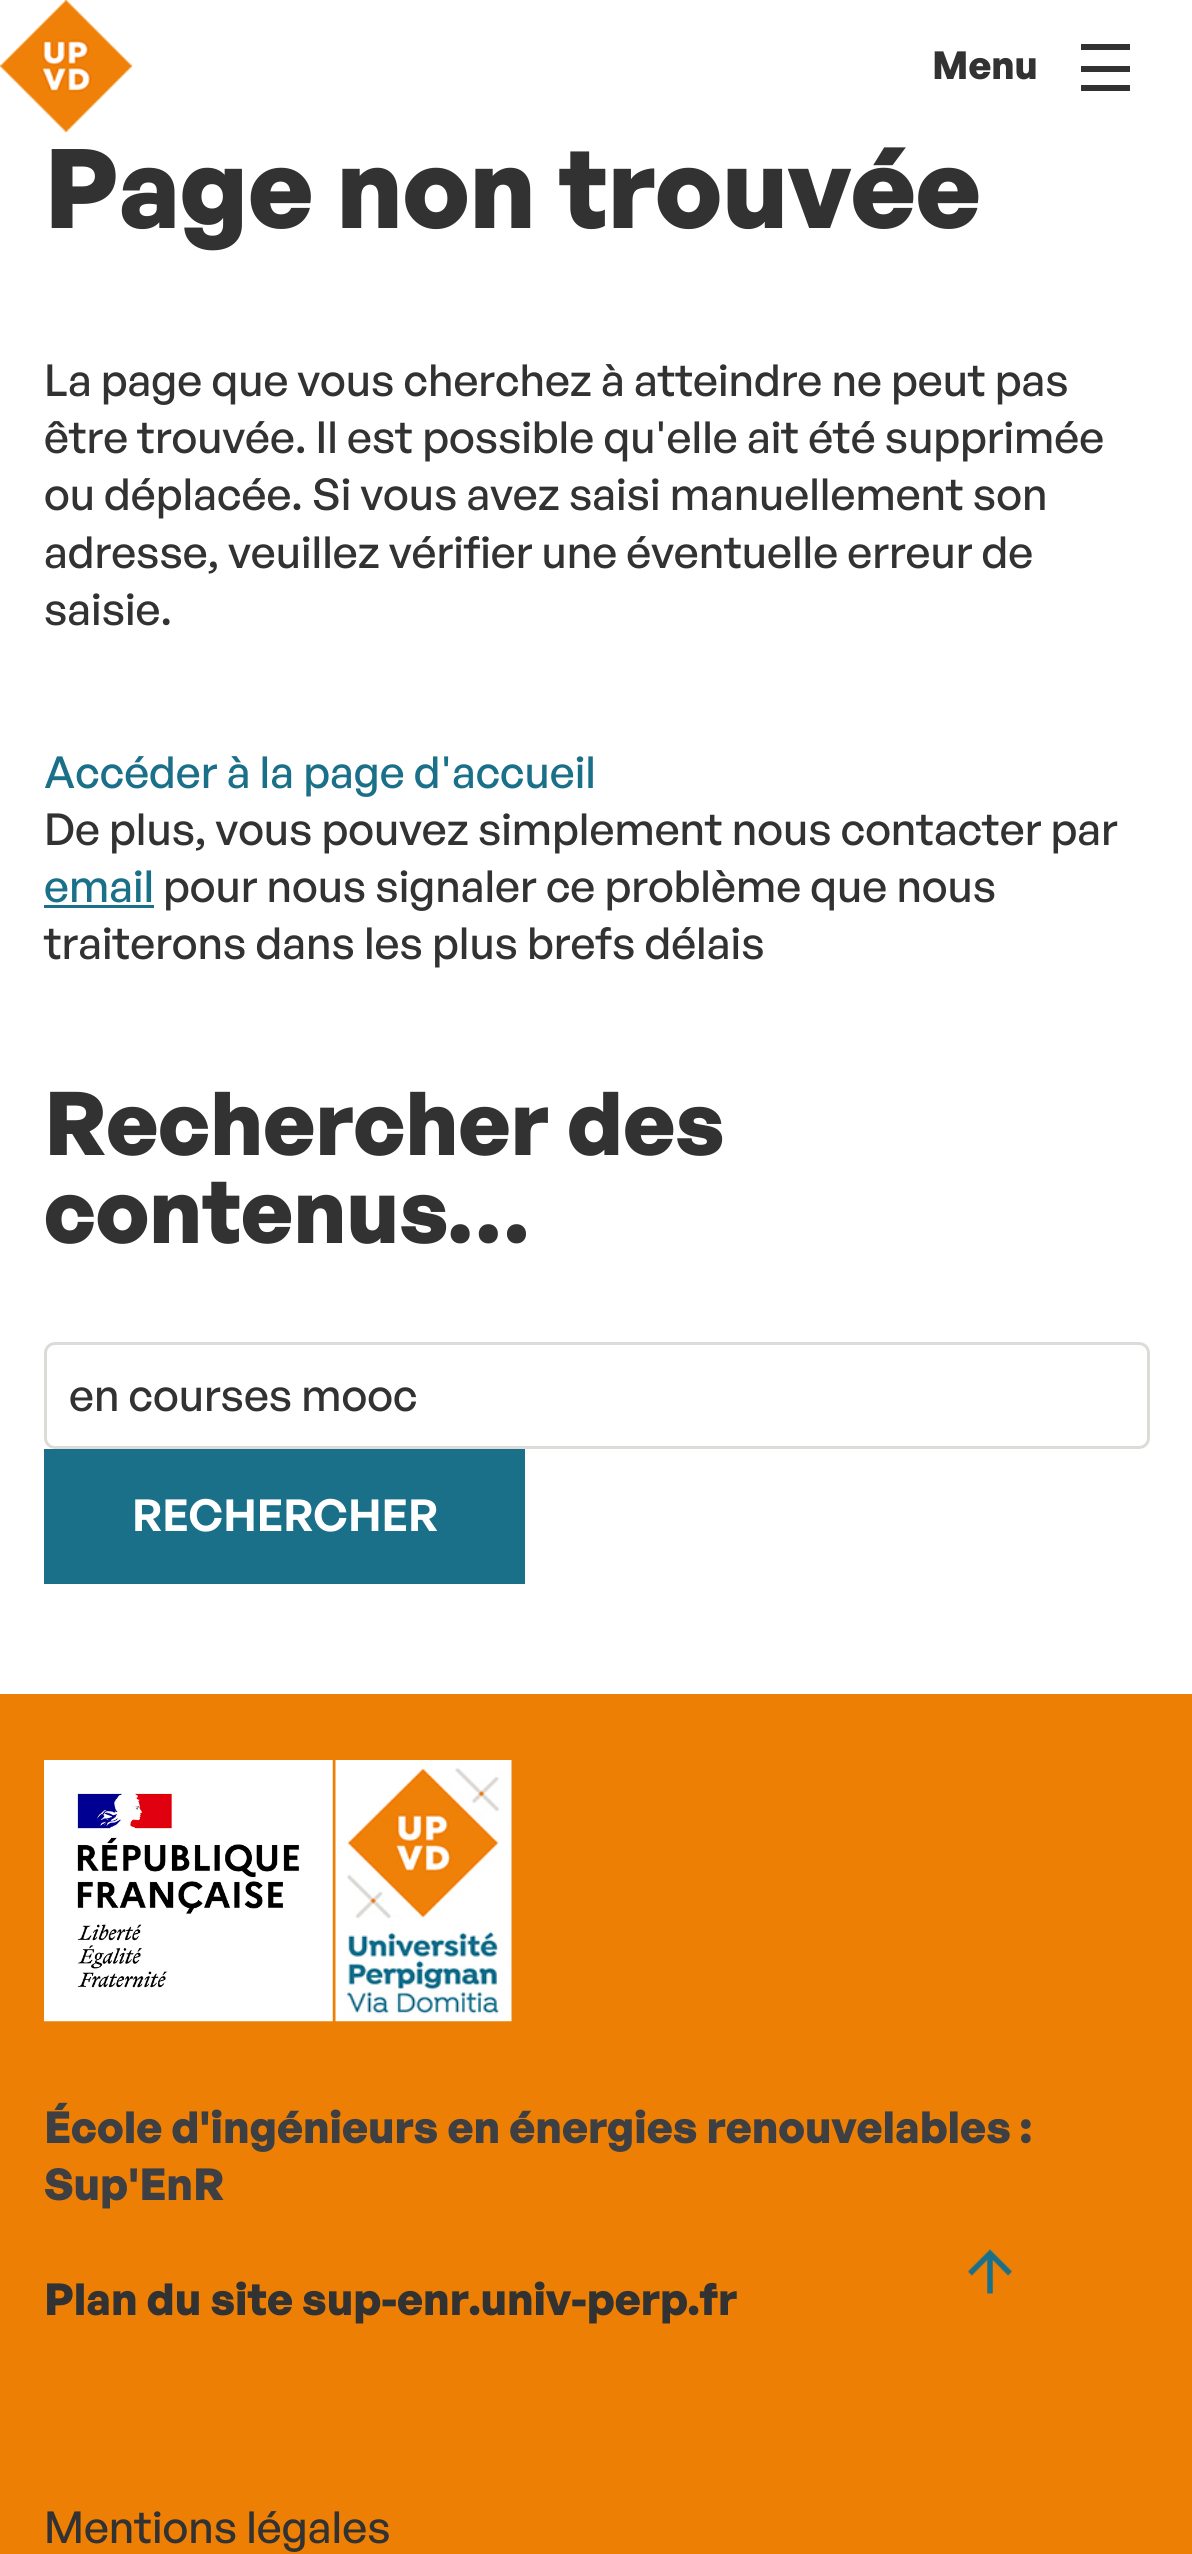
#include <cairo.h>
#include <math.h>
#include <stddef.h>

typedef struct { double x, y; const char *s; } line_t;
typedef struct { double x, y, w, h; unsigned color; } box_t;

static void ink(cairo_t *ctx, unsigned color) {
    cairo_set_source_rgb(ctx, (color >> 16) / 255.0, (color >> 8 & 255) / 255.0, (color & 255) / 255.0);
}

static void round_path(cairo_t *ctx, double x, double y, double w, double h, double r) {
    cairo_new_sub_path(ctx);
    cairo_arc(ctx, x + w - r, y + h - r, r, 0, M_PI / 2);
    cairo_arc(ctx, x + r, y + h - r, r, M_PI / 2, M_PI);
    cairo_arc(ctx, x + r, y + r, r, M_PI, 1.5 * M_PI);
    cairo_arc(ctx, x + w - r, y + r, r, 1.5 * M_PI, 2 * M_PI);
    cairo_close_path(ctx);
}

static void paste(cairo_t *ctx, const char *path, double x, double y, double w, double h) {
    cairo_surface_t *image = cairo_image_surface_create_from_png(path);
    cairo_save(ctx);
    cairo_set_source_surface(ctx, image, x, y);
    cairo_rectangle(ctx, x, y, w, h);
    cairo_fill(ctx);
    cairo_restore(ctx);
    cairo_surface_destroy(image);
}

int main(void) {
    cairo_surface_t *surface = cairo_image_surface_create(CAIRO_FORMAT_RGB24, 1192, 2554);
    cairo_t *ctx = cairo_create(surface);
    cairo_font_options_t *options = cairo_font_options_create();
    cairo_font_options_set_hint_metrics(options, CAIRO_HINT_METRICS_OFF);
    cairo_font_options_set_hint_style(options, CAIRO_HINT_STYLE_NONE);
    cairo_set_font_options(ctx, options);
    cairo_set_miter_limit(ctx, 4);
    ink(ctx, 0xFFFFFF);
    cairo_paint(ctx);
    paste(ctx, "media/1.png", 0, 0, 132, 132);
    cairo_select_font_face(ctx, "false", CAIRO_FONT_SLANT_NORMAL, CAIRO_FONT_WEIGHT_BOLD);
    cairo_set_font_size(ctx, 38.5);
    ink(ctx, 0x323232);
    cairo_move_to(ctx, 932, 79);
    cairo_show_text(ctx, "Menu");
    {
        static const box_t items[] = {
            {1081, 44, 49, 6, 0x323232},
            {1081, 66, 49, 6, 0x323232},
            {1081, 85, 49, 6, 0x323232},
        };
        for (size_t i = 0; i < sizeof items / sizeof *items; i++) {
            ink(ctx, items[i].color);
            cairo_rectangle(ctx, items[i].x, items[i].y, items[i].w, items[i].h);
            cairo_fill(ctx);
        }
    }
    cairo_set_font_size(ctx, 110);
    cairo_move_to(ctx, 44, 228);
    cairo_show_text(ctx, "Page non trouvée");
    cairo_select_font_face(ctx, "General Sans Medium", CAIRO_FONT_SLANT_NORMAL, CAIRO_FONT_WEIGHT_NORMAL);
    cairo_set_font_size(ctx, 44);
    {
        static const line_t items[] = {
            {44, 396, "La page que vous cherchez à atteindre ne peut pas"},
            {44, 453, "être trouvée. Il est possible qu'elle ait été supprimée"},
            {44, 510, "ou déplacée. Si vous avez saisi manuellement son"},
            {44, 568, "adresse, veuillez vérifier une éventuelle erreur de"},
            {44, 625, "saisie."},
        };
        for (size_t i = 0; i < sizeof items / sizeof *items; i++) {
            cairo_move_to(ctx, items[i].x, items[i].y);
            cairo_show_text(ctx, items[i].s);
        }
    }
    ink(ctx, 0x1B7089);
    cairo_move_to(ctx, 44, 788);
    cairo_show_text(ctx, "Accéder à la page d'accueil");
    ink(ctx, 0x323232);
    cairo_move_to(ctx, 44, 845);
    cairo_show_text(ctx, "De plus, vous pouvez simplement nous contacter par");
    ink(ctx, 0x1B7089);
    cairo_move_to(ctx, 44, 902);
    cairo_show_text(ctx, "email");
    cairo_rectangle(ctx, 44, 905, 110, 3);
    cairo_fill(ctx);
    ink(ctx, 0x323232);
    cairo_move_to(ctx, 163, 902);
    cairo_show_text(ctx, "pour nous signaler ce problème que nous");
    cairo_move_to(ctx, 44, 959);
    cairo_show_text(ctx, "traiterons dans les plus brefs délais");
    cairo_select_font_face(ctx, "false", CAIRO_FONT_SLANT_NORMAL, CAIRO_FONT_WEIGHT_BOLD);
    cairo_set_font_size(ctx, 88);
    cairo_move_to(ctx, 44, 1155);
    cairo_show_text(ctx, "Rechercher des");
    cairo_move_to(ctx, 44, 1243);
    cairo_show_text(ctx, "contenus…");
    round_path(ctx, 45.5, 1343.5, 1103, 104, 9.5);
    ink(ctx, 0xDDDBD7);
    cairo_set_line_width(ctx, 3);
    cairo_stroke(ctx);
    cairo_select_font_face(ctx, "General Sans Medium", CAIRO_FONT_SLANT_NORMAL, CAIRO_FONT_WEIGHT_NORMAL);
    cairo_set_font_size(ctx, 44);
    ink(ctx, 0x323232);
    cairo_move_to(ctx, 69, 1411);
    cairo_show_text(ctx, "en courses mooc");
    ink(ctx, 0x1B7089);
    cairo_rectangle(ctx, 44, 1449, 481, 135);
    cairo_fill(ctx);
    cairo_select_font_face(ctx, "General Sans SemiBold", CAIRO_FONT_SLANT_NORMAL, CAIRO_FONT_WEIGHT_NORMAL);
    ink(ctx, 0xFFFFFF);
    cairo_move_to(ctx, 132, 1531);
    cairo_show_text(ctx, "RECHERCHER");
    ink(ctx, 0xEE7F05);
    cairo_rectangle(ctx, 0, 1694, 1192, 860);
    cairo_fill(ctx);
    paste(ctx, "media/2.png", 44, 1760, 289, 262);
    paste(ctx, "media/3.png", 335, 1760, 177, 262);
    cairo_select_font_face(ctx, "false", CAIRO_FONT_SLANT_NORMAL, CAIRO_FONT_WEIGHT_BOLD);
    ink(ctx, 0x3E3F42);
    cairo_move_to(ctx, 44, 2143);
    cairo_show_text(ctx, "École d'ingénieurs en énergies renouvelables :");
    cairo_move_to(ctx, 44, 2200);
    cairo_show_text(ctx, "Sup'EnR");
    ink(ctx, 0x323232);
    cairo_move_to(ctx, 44, 2315);
    cairo_show_text(ctx, "Plan du site sup-enr.univ-perp.fr");
    cairo_select_font_face(ctx, "General Sans Medium", CAIRO_FONT_SLANT_NORMAL, CAIRO_FONT_WEIGHT_NORMAL);
    cairo_move_to(ctx, 44, 2543);
    cairo_show_text(ctx, "Mentions légales");
    paste(ctx, "media/4.png", 968, 2249, 44, 45);
    cairo_surface_write_to_png(surface, "image.png");
    cairo_font_options_destroy(options);
    cairo_destroy(ctx);
    cairo_surface_destroy(surface);
    return 0;
}
